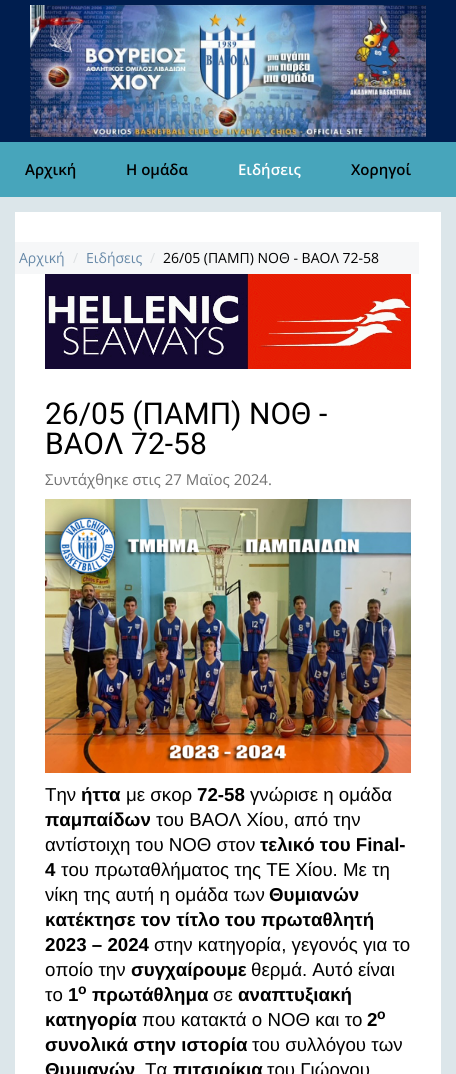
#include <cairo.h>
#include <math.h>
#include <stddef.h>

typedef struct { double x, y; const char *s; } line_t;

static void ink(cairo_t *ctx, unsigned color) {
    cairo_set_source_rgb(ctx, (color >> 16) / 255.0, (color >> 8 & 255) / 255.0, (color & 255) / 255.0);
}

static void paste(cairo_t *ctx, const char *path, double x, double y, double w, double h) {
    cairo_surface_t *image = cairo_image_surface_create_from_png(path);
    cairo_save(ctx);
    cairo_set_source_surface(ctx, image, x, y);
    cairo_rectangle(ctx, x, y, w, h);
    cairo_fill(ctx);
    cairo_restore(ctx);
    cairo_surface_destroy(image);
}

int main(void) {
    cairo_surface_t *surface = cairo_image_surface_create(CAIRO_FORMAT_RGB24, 456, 1074);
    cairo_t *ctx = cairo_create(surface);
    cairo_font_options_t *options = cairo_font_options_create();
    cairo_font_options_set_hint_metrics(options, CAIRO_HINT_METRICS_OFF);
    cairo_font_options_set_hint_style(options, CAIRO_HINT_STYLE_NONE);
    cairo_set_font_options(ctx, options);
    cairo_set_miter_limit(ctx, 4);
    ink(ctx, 0xDCE6EA);
    cairo_paint(ctx);
    ink(ctx, 0x001E4F);
    cairo_rectangle(ctx, 0, 0, 456, 142);
    cairo_fill(ctx);
    paste(ctx, "media/1.png", 30, 5, 396, 132);
    ink(ctx, 0x47A5BB);
    cairo_rectangle(ctx, 0, 142, 456, 55);
    cairo_fill(ctx);
    cairo_select_font_face(ctx, "Open Sans SemiBold", CAIRO_FONT_SLANT_NORMAL, CAIRO_FONT_WEIGHT_NORMAL);
    cairo_set_font_size(ctx, 15);
    ink(ctx, 0x000000);
    cairo_move_to(ctx, 25, 175);
    cairo_show_text(ctx, "Αρχική");
    cairo_move_to(ctx, 126, 175);
    cairo_show_text(ctx, "Η ομάδα");
    ink(ctx, 0xFFFFFF);
    cairo_move_to(ctx, 238, 175);
    cairo_show_text(ctx, "Ειδήσεις");
    ink(ctx, 0x000000);
    cairo_move_to(ctx, 351, 175);
    cairo_show_text(ctx, "Χορηγοί");
    ink(ctx, 0xFFFFFF);
    cairo_rectangle(ctx, 15, 212, 426, 862);
    cairo_fill(ctx);
    ink(ctx, 0xF6F7F8);
    cairo_rectangle(ctx, 15, 242, 404, 32);
    cairo_fill(ctx);
    cairo_select_font_face(ctx, "Open Sans", CAIRO_FONT_SLANT_NORMAL, CAIRO_FONT_WEIGHT_NORMAL);
    cairo_set_font_size(ctx, 14);
    ink(ctx, 0x6688A7);
    cairo_move_to(ctx, 19, 263);
    cairo_show_text(ctx, "Αρχική");
    ink(ctx, 0xDDE0E2);
    cairo_move_to(ctx, 73, 263);
    cairo_show_text(ctx, "/");
    ink(ctx, 0x6688A7);
    cairo_move_to(ctx, 86, 263);
    cairo_show_text(ctx, "Ειδήσεις");
    ink(ctx, 0xDDE0E2);
    cairo_move_to(ctx, 150, 263);
    cairo_show_text(ctx, "/");
    ink(ctx, 0x000000);
    cairo_move_to(ctx, 163, 263);
    cairo_show_text(ctx, "26/05 (ΠΑΜΠ) ΝΟΘ - ΒΑΟΛ 72-58");
    paste(ctx, "media/2.png", 45, 274, 366, 95);
    cairo_select_font_face(ctx, "Roboto", CAIRO_FONT_SLANT_NORMAL, CAIRO_FONT_WEIGHT_NORMAL);
    cairo_set_font_size(ctx, 30);
    cairo_move_to(ctx, 45, 424);
    cairo_show_text(ctx, "26/05 (ΠΑΜΠ) ΝΟΘ -");
    cairo_move_to(ctx, 45, 454);
    cairo_show_text(ctx, "ΒΑΟΛ 72-58");
    cairo_select_font_face(ctx, "Open Sans", CAIRO_FONT_SLANT_NORMAL, CAIRO_FONT_WEIGHT_NORMAL);
    cairo_set_font_size(ctx, 15);
    ink(ctx, 0x717171);
    cairo_move_to(ctx, 45, 485);
    cairo_show_text(ctx, "Συντάχθηκε στις 27 Μαϊος 2024.");
    paste(ctx, "media/3.png", 45, 499, 366, 274);
    cairo_select_font_face(ctx, "Liberation Sans", CAIRO_FONT_SLANT_NORMAL, CAIRO_FONT_WEIGHT_NORMAL);
    cairo_set_font_size(ctx, 18.7);
    ink(ctx, 0x000000);
    cairo_move_to(ctx, 45, 801);
    cairo_show_text(ctx, "Tην");
    cairo_select_font_face(ctx, "Liberation Sans", CAIRO_FONT_SLANT_NORMAL, CAIRO_FONT_WEIGHT_BOLD);
    cairo_move_to(ctx, 81, 801);
    cairo_show_text(ctx, "ήττα");
    cairo_select_font_face(ctx, "Liberation Sans", CAIRO_FONT_SLANT_NORMAL, CAIRO_FONT_WEIGHT_NORMAL);
    cairo_move_to(ctx, 126, 801);
    cairo_show_text(ctx, "με σκορ");
    cairo_select_font_face(ctx, "Liberation Sans", CAIRO_FONT_SLANT_NORMAL, CAIRO_FONT_WEIGHT_BOLD);
    cairo_move_to(ctx, 197, 801);
    cairo_show_text(ctx, "72-58");
    cairo_select_font_face(ctx, "Liberation Sans", CAIRO_FONT_SLANT_NORMAL, CAIRO_FONT_WEIGHT_NORMAL);
    cairo_move_to(ctx, 250, 801);
    cairo_show_text(ctx, "γνώρισε η ομάδα");
    cairo_select_font_face(ctx, "Liberation Sans", CAIRO_FONT_SLANT_NORMAL, CAIRO_FONT_WEIGHT_BOLD);
    cairo_move_to(ctx, 45, 826);
    cairo_show_text(ctx, "παμπαίδων");
    cairo_select_font_face(ctx, "Liberation Sans", CAIRO_FONT_SLANT_NORMAL, CAIRO_FONT_WEIGHT_NORMAL);
    cairo_move_to(ctx, 156, 826);
    cairo_show_text(ctx, "του ΒΑΟΛ Χίου, από την");
    cairo_move_to(ctx, 45, 851);
    cairo_show_text(ctx, "αντίστοιχη του ΝΟΘ στον");
    cairo_select_font_face(ctx, "Liberation Sans", CAIRO_FONT_SLANT_NORMAL, CAIRO_FONT_WEIGHT_BOLD);
    cairo_move_to(ctx, 260, 851);
    cairo_show_text(ctx, "τελικό του Final-");
    cairo_move_to(ctx, 45, 876);
    cairo_show_text(ctx, "4");
    cairo_select_font_face(ctx, "Liberation Sans", CAIRO_FONT_SLANT_NORMAL, CAIRO_FONT_WEIGHT_NORMAL);
    cairo_move_to(ctx, 61, 876);
    cairo_show_text(ctx, "του πρωταθλήματος της ΤΕ Χίου. Με τη");
    cairo_move_to(ctx, 45, 901);
    cairo_show_text(ctx, "νίκη της αυτή η ομάδα των");
    cairo_select_font_face(ctx, "Liberation Sans", CAIRO_FONT_SLANT_NORMAL, CAIRO_FONT_WEIGHT_BOLD);
    {
        static const line_t items[] = {
            {269, 901, "Θυμιανών"},
            {45, 926, "κατέκτησε τον τίτλο του πρωταθλητή"},
            {45, 951, "2023 – 2024"},
        };
        for (size_t i = 0; i < sizeof items / sizeof *items; i++) {
            cairo_move_to(ctx, items[i].x, items[i].y);
            cairo_show_text(ctx, items[i].s);
        }
    }
    cairo_select_font_face(ctx, "Liberation Sans", CAIRO_FONT_SLANT_NORMAL, CAIRO_FONT_WEIGHT_NORMAL);
    cairo_move_to(ctx, 154, 951);
    cairo_show_text(ctx, "στην κατηγορία, γεγονός για το");
    cairo_move_to(ctx, 45, 976);
    cairo_show_text(ctx, "οποίο την");
    cairo_select_font_face(ctx, "Liberation Sans", CAIRO_FONT_SLANT_NORMAL, CAIRO_FONT_WEIGHT_BOLD);
    cairo_move_to(ctx, 131, 976);
    cairo_show_text(ctx, "συγχαίρουμε");
    cairo_select_font_face(ctx, "Liberation Sans", CAIRO_FONT_SLANT_NORMAL, CAIRO_FONT_WEIGHT_NORMAL);
    cairo_move_to(ctx, 251, 976);
    cairo_show_text(ctx, "θερμά. Αυτό είναι");
    cairo_move_to(ctx, 45, 1001);
    cairo_show_text(ctx, "το");
    cairo_select_font_face(ctx, "Liberation Sans", CAIRO_FONT_SLANT_NORMAL, CAIRO_FONT_WEIGHT_BOLD);
    cairo_move_to(ctx, 68, 1001);
    cairo_show_text(ctx, "1");
    cairo_set_font_size(ctx, 14);
    cairo_move_to(ctx, 78, 994);
    cairo_show_text(ctx, "ο");
    cairo_set_font_size(ctx, 18.7);
    cairo_move_to(ctx, 92, 1001);
    cairo_show_text(ctx, "πρωτάθλημα");
    cairo_select_font_face(ctx, "Liberation Sans", CAIRO_FONT_SLANT_NORMAL, CAIRO_FONT_WEIGHT_NORMAL);
    cairo_move_to(ctx, 213, 1001);
    cairo_show_text(ctx, "σε");
    cairo_select_font_face(ctx, "Liberation Sans", CAIRO_FONT_SLANT_NORMAL, CAIRO_FONT_WEIGHT_BOLD);
    cairo_move_to(ctx, 238, 1001);
    cairo_show_text(ctx, "αναπτυξιακή");
    cairo_move_to(ctx, 45, 1026);
    cairo_show_text(ctx, "κατηγορία");
    cairo_select_font_face(ctx, "Liberation Sans", CAIRO_FONT_SLANT_NORMAL, CAIRO_FONT_WEIGHT_NORMAL);
    cairo_move_to(ctx, 142, 1026);
    cairo_show_text(ctx, "που κατακτά ο ΝΟΘ και το");
    cairo_select_font_face(ctx, "Liberation Sans", CAIRO_FONT_SLANT_NORMAL, CAIRO_FONT_WEIGHT_BOLD);
    cairo_move_to(ctx, 367, 1026);
    cairo_show_text(ctx, "2");
    cairo_set_font_size(ctx, 14);
    cairo_move_to(ctx, 377, 1019);
    cairo_show_text(ctx, "ο");
    cairo_set_font_size(ctx, 18.7);
    cairo_move_to(ctx, 45, 1051);
    cairo_show_text(ctx, "συνολικά στην ιστορία");
    cairo_select_font_face(ctx, "Liberation Sans", CAIRO_FONT_SLANT_NORMAL, CAIRO_FONT_WEIGHT_NORMAL);
    cairo_move_to(ctx, 252, 1051);
    cairo_show_text(ctx, "του συλλόγου των");
    cairo_select_font_face(ctx, "Liberation Sans", CAIRO_FONT_SLANT_NORMAL, CAIRO_FONT_WEIGHT_BOLD);
    cairo_move_to(ctx, 45, 1076);
    cairo_show_text(ctx, "Θυμιανών");
    cairo_select_font_face(ctx, "Liberation Sans", CAIRO_FONT_SLANT_NORMAL, CAIRO_FONT_WEIGHT_NORMAL);
    cairo_move_to(ctx, 145, 1076);
    cairo_show_text(ctx, "Τα");
    cairo_select_font_face(ctx, "Liberation Sans", CAIRO_FONT_SLANT_NORMAL, CAIRO_FONT_WEIGHT_BOLD);
    cairo_move_to(ctx, 173, 1076);
    cairo_show_text(ctx, "πιτσιρίκια");
    cairo_select_font_face(ctx, "Liberation Sans", CAIRO_FONT_SLANT_NORMAL, CAIRO_FONT_WEIGHT_NORMAL);
    cairo_move_to(ctx, 267, 1076);
    cairo_show_text(ctx, "του Γιώργου");
    cairo_surface_write_to_png(surface, "image.png");
    cairo_font_options_destroy(options);
    cairo_destroy(ctx);
    cairo_surface_destroy(surface);
    return 0;
}
